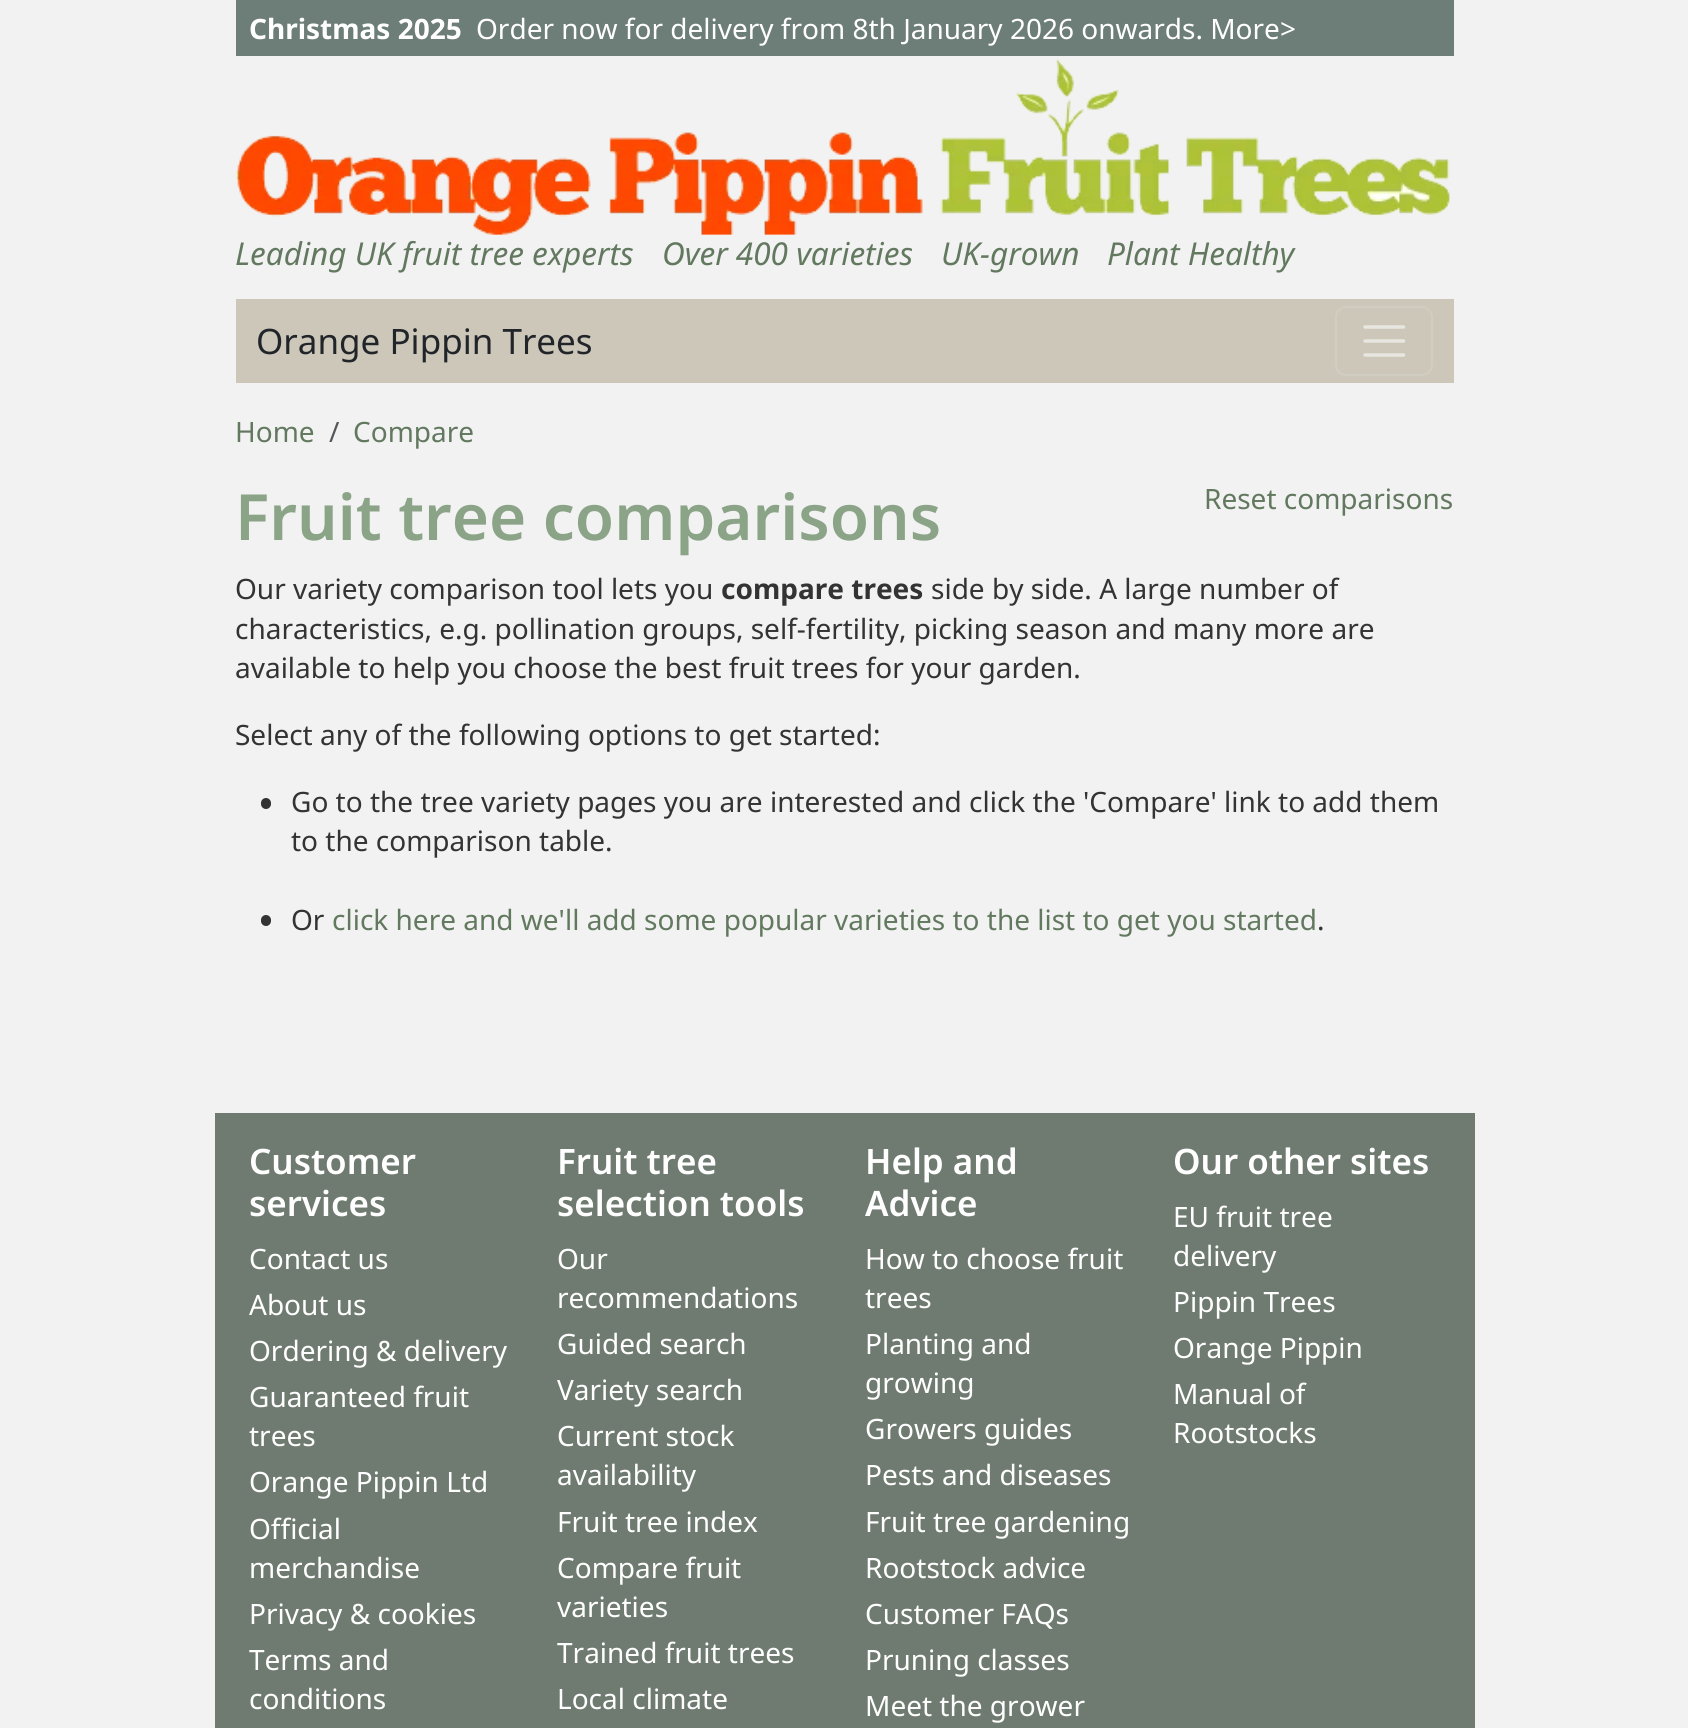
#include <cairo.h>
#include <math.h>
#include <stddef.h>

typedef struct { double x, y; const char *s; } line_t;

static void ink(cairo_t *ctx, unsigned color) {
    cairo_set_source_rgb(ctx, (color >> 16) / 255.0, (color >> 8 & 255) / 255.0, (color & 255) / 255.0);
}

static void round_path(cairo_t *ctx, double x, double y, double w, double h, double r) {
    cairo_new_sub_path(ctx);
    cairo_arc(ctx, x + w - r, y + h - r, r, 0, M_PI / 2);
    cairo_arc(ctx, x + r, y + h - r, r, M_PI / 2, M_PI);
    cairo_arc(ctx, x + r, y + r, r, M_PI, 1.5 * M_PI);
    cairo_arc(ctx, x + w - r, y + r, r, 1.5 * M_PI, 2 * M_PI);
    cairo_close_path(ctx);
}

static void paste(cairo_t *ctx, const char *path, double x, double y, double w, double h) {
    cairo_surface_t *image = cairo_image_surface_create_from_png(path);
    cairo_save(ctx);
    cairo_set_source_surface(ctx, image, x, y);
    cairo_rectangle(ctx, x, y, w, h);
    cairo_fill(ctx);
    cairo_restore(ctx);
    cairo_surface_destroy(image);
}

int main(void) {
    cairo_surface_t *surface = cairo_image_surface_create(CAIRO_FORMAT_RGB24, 1688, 1728);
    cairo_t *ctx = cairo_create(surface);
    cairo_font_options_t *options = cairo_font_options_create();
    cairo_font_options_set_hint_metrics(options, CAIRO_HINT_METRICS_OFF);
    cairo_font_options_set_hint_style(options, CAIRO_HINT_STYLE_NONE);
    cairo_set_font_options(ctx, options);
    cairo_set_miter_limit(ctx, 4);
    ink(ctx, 0xF2F2F2);
    cairo_paint(ctx);
    ink(ctx, 0x6D7D78);
    cairo_rectangle(ctx, 236, 0, 1218, 56);
    cairo_fill(ctx);
    cairo_select_font_face(ctx, "Noto Sans", CAIRO_FONT_SLANT_NORMAL, CAIRO_FONT_WEIGHT_BOLD);
    cairo_set_font_size(ctx, 28);
    ink(ctx, 0xFFFFFF);
    cairo_move_to(ctx, 249, 39);
    cairo_show_text(ctx, "Christmas 2025");
    cairo_select_font_face(ctx, "Noto Sans", CAIRO_FONT_SLANT_NORMAL, CAIRO_FONT_WEIGHT_NORMAL);
    cairo_move_to(ctx, 476, 39);
    cairo_show_text(ctx, "Order now for delivery from 8th January 2026 onwards. More>");
    paste(ctx, "media/1.png", 236, 58, 1215, 177);
    cairo_select_font_face(ctx, "Noto Sans", CAIRO_FONT_SLANT_ITALIC, CAIRO_FONT_WEIGHT_NORMAL);
    cairo_set_font_size(ctx, 31.5);
    ink(ctx, 0x62795F);
    {
        static const line_t items[] = {
            {235, 265, "Leading UK fruit tree experts"},
            {662, 265, "Over 400 varieties"},
            {941, 265, "UK-grown"},
            {1107, 265, "Plant Healthy"},
        };
        for (size_t i = 0; i < sizeof items / sizeof *items; i++) {
            cairo_move_to(ctx, items[i].x, items[i].y);
            cairo_show_text(ctx, items[i].s);
        }
    }
    ink(ctx, 0xCCC7B9);
    cairo_rectangle(ctx, 236, 299, 1218, 84);
    cairo_fill(ctx);
    cairo_select_font_face(ctx, "Noto Sans", CAIRO_FONT_SLANT_NORMAL, CAIRO_FONT_WEIGHT_NORMAL);
    cairo_set_font_size(ctx, 35);
    ink(ctx, 0x212529);
    cairo_move_to(ctx, 256, 354);
    cairo_show_text(ctx, "Orange Pippin Trees");
    round_path(ctx, 1336, 307, 96, 68, 10);
    ink(ctx, 0xD1CDC0);
    cairo_stroke(ctx);
    cairo_new_path(ctx);
    cairo_move_to(ctx, 1365, 327);
    cairo_line_to(ctx, 1403.5, 327);
    cairo_move_to(ctx, 1365, 341);
    cairo_line_to(ctx, 1403.5, 341);
    cairo_move_to(ctx, 1365, 355);
    cairo_line_to(ctx, 1403.5, 355);
    ink(ctx, 0xE8E6E0);
    cairo_set_line_width(ctx, 3.5);
    cairo_set_line_cap(ctx, CAIRO_LINE_CAP_ROUND);
    cairo_stroke(ctx);
    cairo_set_font_size(ctx, 28);
    ink(ctx, 0x62795F);
    cairo_move_to(ctx, 235, 442);
    cairo_show_text(ctx, "Home");
    ink(ctx, 0x55585B);
    cairo_move_to(ctx, 329, 442);
    cairo_show_text(ctx, "/");
    ink(ctx, 0x62795F);
    cairo_move_to(ctx, 353, 442);
    cairo_show_text(ctx, "Compare");
    cairo_select_font_face(ctx, "Noto Sans SemiBold", CAIRO_FONT_SLANT_NORMAL, CAIRO_FONT_WEIGHT_NORMAL);
    cairo_set_font_size(ctx, 63.75);
    ink(ctx, 0x8BA488);
    cairo_move_to(ctx, 235, 540);
    cairo_show_text(ctx, "Fruit tree comparisons");
    cairo_select_font_face(ctx, "Noto Sans", CAIRO_FONT_SLANT_NORMAL, CAIRO_FONT_WEIGHT_NORMAL);
    cairo_set_font_size(ctx, 28);
    ink(ctx, 0x62795F);
    cairo_move_to(ctx, 1204, 509);
    cairo_show_text(ctx, "Reset comparisons");
    ink(ctx, 0x333333);
    cairo_move_to(ctx, 235, 599);
    cairo_show_text(ctx, "Our variety comparison tool lets you");
    cairo_select_font_face(ctx, "Noto Sans", CAIRO_FONT_SLANT_NORMAL, CAIRO_FONT_WEIGHT_BOLD);
    cairo_move_to(ctx, 721, 599);
    cairo_show_text(ctx, "compare trees");
    cairo_select_font_face(ctx, "Noto Sans", CAIRO_FONT_SLANT_NORMAL, CAIRO_FONT_WEIGHT_NORMAL);
    {
        static const line_t items[] = {
            {931, 599, "side by side. A large number of"},
            {235, 639, "characteristics, e.g. pollination groups, self-fertility, picking season and many more are"},
            {235, 678, "available to help you choose the best fruit trees for your garden."},
            {235, 745, "Select any of the following options to get started:"},
        };
        for (size_t i = 0; i < sizeof items / sizeof *items; i++) {
            cairo_move_to(ctx, items[i].x, items[i].y);
            cairo_show_text(ctx, items[i].s);
        }
    }
    round_path(ctx, 261, 798, 10, 11, 5);
    cairo_fill(ctx);
    cairo_move_to(ctx, 291, 812);
    cairo_show_text(ctx, "Go to the tree variety pages you are interested and click the 'Compare' link to add them");
    cairo_move_to(ctx, 291, 851);
    cairo_show_text(ctx, "to the comparison table.");
    round_path(ctx, 261, 915, 10, 11, 5);
    cairo_fill(ctx);
    cairo_move_to(ctx, 291, 930);
    cairo_show_text(ctx, "Or");
    ink(ctx, 0x62795F);
    cairo_move_to(ctx, 332, 930);
    cairo_show_text(ctx, "click here and we'll add some popular varieties to the list to get you started");
    ink(ctx, 0x333333);
    cairo_move_to(ctx, 1317, 930);
    cairo_show_text(ctx, ".");
    ink(ctx, 0x6F7B71);
    cairo_rectangle(ctx, 215, 1113, 1260, 615);
    cairo_fill(ctx);
    cairo_select_font_face(ctx, "Noto Sans SemiBold", CAIRO_FONT_SLANT_NORMAL, CAIRO_FONT_WEIGHT_NORMAL);
    cairo_set_font_size(ctx, 35);
    ink(ctx, 0xFFFFFF);
    cairo_move_to(ctx, 249, 1174);
    cairo_show_text(ctx, "Customer");
    cairo_move_to(ctx, 249, 1216);
    cairo_show_text(ctx, "services");
    cairo_select_font_face(ctx, "Noto Sans", CAIRO_FONT_SLANT_NORMAL, CAIRO_FONT_WEIGHT_NORMAL);
    cairo_set_font_size(ctx, 28);
    {
        static const line_t items[] = {
            {249, 1269, "Contact us"},
            {249, 1315, "About us"},
            {249, 1361, "Ordering & delivery"},
            {249, 1407, "Guaranteed fruit"},
            {249, 1446, "trees"},
            {249, 1492, "Orange Pippin Ltd"},
            {249, 1539, "Official"},
            {249, 1578, "merchandise"},
            {249, 1624, "Privacy & cookies"},
            {249, 1670, "Terms and"},
            {249, 1709, "conditions"},
        };
        for (size_t i = 0; i < sizeof items / sizeof *items; i++) {
            cairo_move_to(ctx, items[i].x, items[i].y);
            cairo_show_text(ctx, items[i].s);
        }
    }
    cairo_select_font_face(ctx, "Noto Sans SemiBold", CAIRO_FONT_SLANT_NORMAL, CAIRO_FONT_WEIGHT_NORMAL);
    cairo_set_font_size(ctx, 35);
    cairo_move_to(ctx, 557, 1174);
    cairo_show_text(ctx, "Fruit tree");
    cairo_move_to(ctx, 557, 1216);
    cairo_show_text(ctx, "selection tools");
    cairo_select_font_face(ctx, "Noto Sans", CAIRO_FONT_SLANT_NORMAL, CAIRO_FONT_WEIGHT_NORMAL);
    cairo_set_font_size(ctx, 28);
    {
        static const line_t items[] = {
            {557, 1269, "Our"},
            {557, 1308, "recommendations"},
            {557, 1354, "Guided search"},
            {557, 1400, "Variety search"},
            {557, 1446, "Current stock"},
            {557, 1485, "availability"},
            {557, 1532, "Fruit tree index"},
            {557, 1578, "Compare fruit"},
            {557, 1617, "varieties"},
            {557, 1663, "Trained fruit trees"},
            {557, 1709, "Local climate"},
        };
        for (size_t i = 0; i < sizeof items / sizeof *items; i++) {
            cairo_move_to(ctx, items[i].x, items[i].y);
            cairo_show_text(ctx, items[i].s);
        }
    }
    cairo_select_font_face(ctx, "Noto Sans SemiBold", CAIRO_FONT_SLANT_NORMAL, CAIRO_FONT_WEIGHT_NORMAL);
    cairo_set_font_size(ctx, 35);
    cairo_move_to(ctx, 865, 1174);
    cairo_show_text(ctx, "Help and");
    cairo_move_to(ctx, 865, 1216);
    cairo_show_text(ctx, "Advice");
    cairo_select_font_face(ctx, "Noto Sans", CAIRO_FONT_SLANT_NORMAL, CAIRO_FONT_WEIGHT_NORMAL);
    cairo_set_font_size(ctx, 28);
    {
        static const line_t items[] = {
            {865, 1269, "How to choose fruit"},
            {865, 1308, "trees"},
            {865, 1354, "Planting and"},
            {865, 1393, "growing"},
            {865, 1439, "Growers guides"},
            {865, 1485, "Pests and diseases"},
            {865, 1532, "Fruit tree gardening"},
            {865, 1578, "Rootstock advice"},
            {865, 1624, "Customer FAQs"},
            {865, 1670, "Pruning classes"},
            {865, 1716, "Meet the grower"},
        };
        for (size_t i = 0; i < sizeof items / sizeof *items; i++) {
            cairo_move_to(ctx, items[i].x, items[i].y);
            cairo_show_text(ctx, items[i].s);
        }
    }
    cairo_select_font_face(ctx, "Noto Sans SemiBold", CAIRO_FONT_SLANT_NORMAL, CAIRO_FONT_WEIGHT_NORMAL);
    cairo_set_font_size(ctx, 35);
    cairo_move_to(ctx, 1173, 1174);
    cairo_show_text(ctx, "Our other sites");
    cairo_select_font_face(ctx, "Noto Sans", CAIRO_FONT_SLANT_NORMAL, CAIRO_FONT_WEIGHT_NORMAL);
    cairo_set_font_size(ctx, 28);
    {
        static const line_t items[] = {
            {1173, 1227, "EU fruit tree"},
            {1173, 1266, "delivery"},
            {1173, 1312, "Pippin Trees"},
            {1173, 1358, "Orange Pippin"},
            {1173, 1404, "Manual of"},
            {1173, 1443, "Rootstocks"},
        };
        for (size_t i = 0; i < sizeof items / sizeof *items; i++) {
            cairo_move_to(ctx, items[i].x, items[i].y);
            cairo_show_text(ctx, items[i].s);
        }
    }
    cairo_surface_write_to_png(surface, "image.png");
    cairo_font_options_destroy(options);
    cairo_destroy(ctx);
    cairo_surface_destroy(surface);
    return 0;
}
